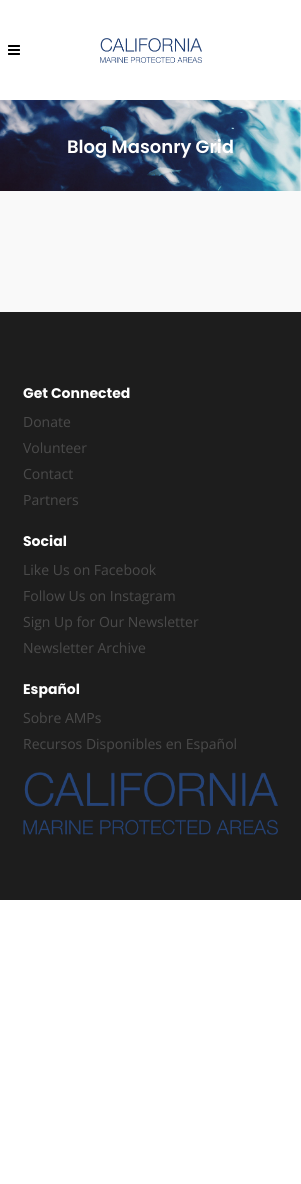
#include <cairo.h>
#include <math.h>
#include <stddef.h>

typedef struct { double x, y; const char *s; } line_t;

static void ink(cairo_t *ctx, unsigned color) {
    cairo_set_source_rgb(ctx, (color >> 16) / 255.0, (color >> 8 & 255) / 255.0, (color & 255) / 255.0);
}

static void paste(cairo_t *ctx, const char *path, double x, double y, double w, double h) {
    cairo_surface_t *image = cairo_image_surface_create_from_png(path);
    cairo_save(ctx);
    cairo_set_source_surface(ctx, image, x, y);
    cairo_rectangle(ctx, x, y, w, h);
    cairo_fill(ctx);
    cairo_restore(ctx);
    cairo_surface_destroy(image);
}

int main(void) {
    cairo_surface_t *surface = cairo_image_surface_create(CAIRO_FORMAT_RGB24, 301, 1184);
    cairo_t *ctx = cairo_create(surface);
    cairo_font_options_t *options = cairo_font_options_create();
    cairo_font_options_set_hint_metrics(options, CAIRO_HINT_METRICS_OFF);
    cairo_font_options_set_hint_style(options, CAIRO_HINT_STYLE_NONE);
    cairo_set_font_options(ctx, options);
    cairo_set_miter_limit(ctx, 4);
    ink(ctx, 0xFFFFFF);
    cairo_paint(ctx);
    paste(ctx, "media/1.png", 8, 45, 12, 10);
    paste(ctx, "media/2.png", 100, 38, 102, 25);
    paste(ctx, "media/3.png", 0, 100, 301, 91);
    cairo_select_font_face(ctx, "Poppins SemiBold", CAIRO_FONT_SLANT_NORMAL, CAIRO_FONT_WEIGHT_NORMAL);
    cairo_set_font_size(ctx, 18);
    ink(ctx, 0xFFFFFF);
    cairo_move_to(ctx, 67, 153);
    cairo_show_text(ctx, "Blog Masonry Grid");
    ink(ctx, 0xF9F9F9);
    cairo_rectangle(ctx, 0, 191, 301, 121);
    cairo_fill(ctx);
    ink(ctx, 0x1D1D1D);
    cairo_rectangle(ctx, 0, 312, 301, 588);
    cairo_fill(ctx);
    cairo_select_font_face(ctx, "Poppins", CAIRO_FONT_SLANT_NORMAL, CAIRO_FONT_WEIGHT_BOLD);
    cairo_set_font_size(ctx, 14);
    ink(ctx, 0xFFFFFF);
    cairo_move_to(ctx, 23, 398);
    cairo_show_text(ctx, "Get Connected");
    cairo_select_font_face(ctx, "Open Sans", CAIRO_FONT_SLANT_NORMAL, CAIRO_FONT_WEIGHT_NORMAL);
    ink(ctx, 0x4A4A4A);
    {
        static const line_t items[] = {
            {23, 427, "Donate"},
            {23, 453, "Volunteer"},
            {23, 479, "Contact"},
            {23, 505, "Partners"},
        };
        for (size_t i = 0; i < sizeof items / sizeof *items; i++) {
            cairo_move_to(ctx, items[i].x, items[i].y);
            cairo_show_text(ctx, items[i].s);
        }
    }
    cairo_select_font_face(ctx, "Poppins", CAIRO_FONT_SLANT_NORMAL, CAIRO_FONT_WEIGHT_BOLD);
    ink(ctx, 0xFFFFFF);
    cairo_move_to(ctx, 23, 546);
    cairo_show_text(ctx, "Social");
    cairo_select_font_face(ctx, "Open Sans", CAIRO_FONT_SLANT_NORMAL, CAIRO_FONT_WEIGHT_NORMAL);
    ink(ctx, 0x4A4A4A);
    {
        static const line_t items[] = {
            {23, 575, "Like Us on Facebook"},
            {23, 601, "Follow Us on Instagram"},
            {23, 627, "Sign Up for Our Newsletter"},
            {23, 653, "Newsletter Archive"},
        };
        for (size_t i = 0; i < sizeof items / sizeof *items; i++) {
            cairo_move_to(ctx, items[i].x, items[i].y);
            cairo_show_text(ctx, items[i].s);
        }
    }
    cairo_select_font_face(ctx, "Poppins", CAIRO_FONT_SLANT_NORMAL, CAIRO_FONT_WEIGHT_BOLD);
    ink(ctx, 0xFFFFFF);
    cairo_move_to(ctx, 23, 694);
    cairo_show_text(ctx, "Español");
    cairo_select_font_face(ctx, "Open Sans", CAIRO_FONT_SLANT_NORMAL, CAIRO_FONT_WEIGHT_NORMAL);
    ink(ctx, 0x4A4A4A);
    cairo_move_to(ctx, 23, 723);
    cairo_show_text(ctx, "Sobre AMPs");
    cairo_move_to(ctx, 23, 749);
    cairo_show_text(ctx, "Recursos Disponibles en Español");
    paste(ctx, "media/4.png", 23, 772, 255, 63);
    cairo_surface_write_to_png(surface, "image.png");
    cairo_font_options_destroy(options);
    cairo_destroy(ctx);
    cairo_surface_destroy(surface);
    return 0;
}
